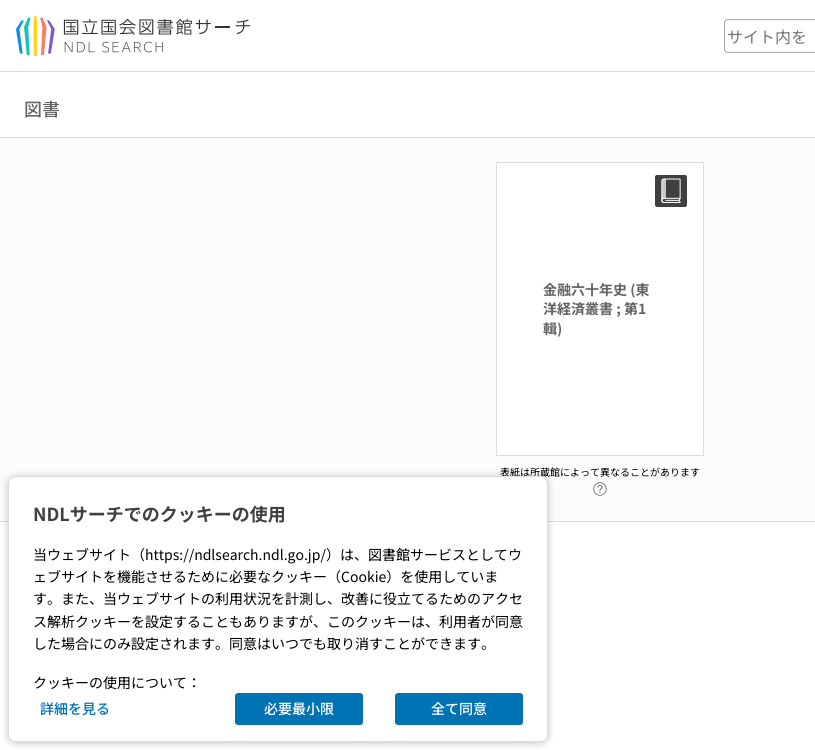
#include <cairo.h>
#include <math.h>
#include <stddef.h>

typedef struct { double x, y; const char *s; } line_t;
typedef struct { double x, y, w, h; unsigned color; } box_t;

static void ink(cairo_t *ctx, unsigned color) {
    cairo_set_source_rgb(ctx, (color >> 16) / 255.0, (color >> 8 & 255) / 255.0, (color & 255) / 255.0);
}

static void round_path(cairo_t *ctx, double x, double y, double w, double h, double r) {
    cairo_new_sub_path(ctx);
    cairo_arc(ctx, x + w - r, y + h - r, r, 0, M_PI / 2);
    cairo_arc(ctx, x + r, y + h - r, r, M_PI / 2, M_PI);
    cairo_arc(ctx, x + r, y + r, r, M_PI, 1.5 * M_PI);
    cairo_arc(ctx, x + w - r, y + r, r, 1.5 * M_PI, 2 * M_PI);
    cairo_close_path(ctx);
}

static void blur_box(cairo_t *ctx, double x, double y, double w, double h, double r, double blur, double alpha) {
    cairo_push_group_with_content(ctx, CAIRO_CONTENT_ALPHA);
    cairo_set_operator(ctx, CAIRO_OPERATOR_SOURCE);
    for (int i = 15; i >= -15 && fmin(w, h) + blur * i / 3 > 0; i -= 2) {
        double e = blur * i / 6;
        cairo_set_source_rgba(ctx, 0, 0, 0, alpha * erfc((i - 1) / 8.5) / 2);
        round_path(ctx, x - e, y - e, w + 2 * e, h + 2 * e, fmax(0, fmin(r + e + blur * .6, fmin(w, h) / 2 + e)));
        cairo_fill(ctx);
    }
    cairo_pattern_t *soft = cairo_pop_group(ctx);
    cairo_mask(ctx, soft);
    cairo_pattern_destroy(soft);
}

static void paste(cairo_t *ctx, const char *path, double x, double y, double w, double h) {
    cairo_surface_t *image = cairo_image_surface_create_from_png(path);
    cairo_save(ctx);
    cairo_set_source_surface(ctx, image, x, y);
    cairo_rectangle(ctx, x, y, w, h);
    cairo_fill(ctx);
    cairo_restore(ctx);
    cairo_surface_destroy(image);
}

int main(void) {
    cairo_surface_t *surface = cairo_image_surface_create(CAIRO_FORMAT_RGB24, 815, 750);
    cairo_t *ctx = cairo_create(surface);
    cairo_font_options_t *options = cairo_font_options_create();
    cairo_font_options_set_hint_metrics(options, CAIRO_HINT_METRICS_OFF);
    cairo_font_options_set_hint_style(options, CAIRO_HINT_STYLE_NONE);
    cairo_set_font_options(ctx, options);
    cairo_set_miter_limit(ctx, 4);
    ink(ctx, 0xFFFFFF);
    cairo_paint(ctx);
    ink(ctx, 0xDBDBDB);
    cairo_rectangle(ctx, 0, 71, 815, 1);
    cairo_fill(ctx);
    paste(ctx, "media/1.png", 16, 16, 234, 40);
    round_path(ctx, 724.5, 19.5, 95, 33, 3.5);
    ink(ctx, 0xAAAAAA);
    cairo_set_line_width(ctx, 1);
    cairo_stroke(ctx);
    cairo_select_font_face(ctx, "Noto Sans JP", CAIRO_FONT_SLANT_NORMAL, CAIRO_FONT_WEIGHT_NORMAL);
    cairo_set_font_size(ctx, 16);
    ink(ctx, 0x767676);
    cairo_move_to(ctx, 727, 43);
    cairo_show_text(ctx, "サイト内を");
    cairo_select_font_face(ctx, "Noto Sans JP Medium", CAIRO_FONT_SLANT_NORMAL, CAIRO_FONT_WEIGHT_NORMAL);
    cairo_set_font_size(ctx, 18);
    ink(ctx, 0x666666);
    cairo_move_to(ctx, 24, 116);
    cairo_show_text(ctx, "図書");
    {
        static const box_t items[] = {
            {0, 138, 815, 383, 0xFCFCFC},
            {0, 137, 815, 1, 0xDBDBDB},
            {0, 521, 815, 1, 0xDBDBDB},
        };
        for (size_t i = 0; i < sizeof items / sizeof *items; i++) {
            ink(ctx, items[i].color);
            cairo_rectangle(ctx, items[i].x, items[i].y, items[i].w, items[i].h);
            cairo_fill(ctx);
        }
    }
    ink(ctx, 0xFFFFFF);
    cairo_rectangle(ctx, 496.5, 162.5, 207, 293);
    cairo_fill_preserve(ctx);
    ink(ctx, 0xDBDBDB);
    cairo_stroke(ctx);
    paste(ctx, "media/2.png", 655, 175, 32, 32);
    cairo_select_font_face(ctx, "Noto Sans JP", CAIRO_FONT_SLANT_NORMAL, CAIRO_FONT_WEIGHT_BOLD);
    cairo_set_font_size(ctx, 14);
    ink(ctx, 0x666666);
    cairo_move_to(ctx, 543, 295);
    cairo_show_text(ctx, "金融六十年史 (東");
    cairo_move_to(ctx, 543, 314);
    cairo_show_text(ctx, "洋経済");
    cairo_select_font_face(ctx, "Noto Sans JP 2", CAIRO_FONT_SLANT_NORMAL, CAIRO_FONT_WEIGHT_BOLD);
    cairo_move_to(ctx, 585, 314);
    cairo_show_text(ctx, "叢");
    cairo_select_font_face(ctx, "Noto Sans JP", CAIRO_FONT_SLANT_NORMAL, CAIRO_FONT_WEIGHT_BOLD);
    cairo_move_to(ctx, 599, 314);
    cairo_show_text(ctx, "書 ; 第1");
    cairo_select_font_face(ctx, "Noto Sans JP 2", CAIRO_FONT_SLANT_NORMAL, CAIRO_FONT_WEIGHT_BOLD);
    cairo_move_to(ctx, 543, 334);
    cairo_show_text(ctx, "輯");
    cairo_select_font_face(ctx, "Noto Sans JP", CAIRO_FONT_SLANT_NORMAL, CAIRO_FONT_WEIGHT_BOLD);
    cairo_move_to(ctx, 557, 334);
    cairo_show_text(ctx, ")");
    cairo_select_font_face(ctx, "Noto Sans JP", CAIRO_FONT_SLANT_NORMAL, CAIRO_FONT_WEIGHT_NORMAL);
    cairo_set_font_size(ctx, 10);
    ink(ctx, 0x000000);
    cairo_move_to(ctx, 500, 476);
    cairo_show_text(ctx, "表紙は所蔵館によって異なることがあります");
    paste(ctx, "media/3.png", 593, 482, 14, 14);
    ink(ctx, 0x000000);
    blur_box(ctx, 8, 477, 540, 266, 8, 4, 0.24);
    ink(ctx, 0xFFFFFF);
    round_path(ctx, 8.5, 476.5, 539, 265, 7.5);
    cairo_fill_preserve(ctx);
    ink(ctx, 0xDBDBDB);
    cairo_stroke(ctx);
    cairo_select_font_face(ctx, "Noto Sans JP", CAIRO_FONT_SLANT_NORMAL, CAIRO_FONT_WEIGHT_BOLD);
    cairo_set_font_size(ctx, 18);
    ink(ctx, 0x404040);
    cairo_move_to(ctx, 33, 521);
    cairo_show_text(ctx, "NDLサーチでのクッキーの使用");
    cairo_select_font_face(ctx, "Noto Sans JP", CAIRO_FONT_SLANT_NORMAL, CAIRO_FONT_WEIGHT_NORMAL);
    cairo_set_font_size(ctx, 14);
    ink(ctx, 0x000000);
    {
        static const line_t items[] = {
            {33, 560, "当ウェブサイト（https://ndlsearch.ndl.go.jp/）は、図書館サービスとしてウ"},
            {33, 582, "ェブサイトを機能させるために必要なクッキー（Cookie）を使用していま"},
            {33, 604, "す。また、当ウェブサイトの利用状況を計測し、改善に役立てるためのアクセ"},
            {33, 627, "ス解析クッキーを設定することもありますが、このクッキーは、利用者が同意"},
            {33, 649, "した場合にのみ設定されます。同意はいつでも取り消すことができます。"},
        };
        for (size_t i = 0; i < sizeof items / sizeof *items; i++) {
            cairo_move_to(ctx, items[i].x, items[i].y);
            cairo_show_text(ctx, items[i].s);
        }
    }
    ink(ctx, 0xFFFFFF);
    cairo_new_path(ctx);
    cairo_move_to(ctx, 9, 655);
    cairo_line_to(ctx, 547, 655);
    cairo_line_to(ctx, 547, 734);
    cairo_curve_to(ctx, 547, 738, 544, 741, 540, 741);
    cairo_line_to(ctx, 16, 741);
    cairo_curve_to(ctx, 12, 741, 9, 738, 9, 734);
    cairo_close_path(ctx);
    cairo_fill(ctx);
    ink(ctx, 0x000000);
    cairo_move_to(ctx, 33, 688);
    cairo_show_text(ctx, "クッキーの使用について：");
    cairo_select_font_face(ctx, "Noto Sans JP Medium", CAIRO_FONT_SLANT_NORMAL, CAIRO_FONT_WEIGHT_NORMAL);
    ink(ctx, 0x0073B5);
    cairo_move_to(ctx, 40, 714);
    cairo_show_text(ctx, "詳細を見る");
    round_path(ctx, 235.5, 693.5, 127, 31, 2.5);
    cairo_fill_preserve(ctx);
    cairo_stroke(ctx);
    ink(ctx, 0xFFFFFF);
    cairo_move_to(ctx, 264, 714);
    cairo_show_text(ctx, "必要最小限");
    ink(ctx, 0x0073B5);
    round_path(ctx, 395.5, 693.5, 127, 31, 2.5);
    cairo_fill_preserve(ctx);
    cairo_stroke(ctx);
    ink(ctx, 0xFFFFFF);
    cairo_move_to(ctx, 431, 714);
    cairo_show_text(ctx, "全て同意");
    cairo_surface_write_to_png(surface, "image.png");
    cairo_font_options_destroy(options);
    cairo_destroy(ctx);
    cairo_surface_destroy(surface);
    return 0;
}
